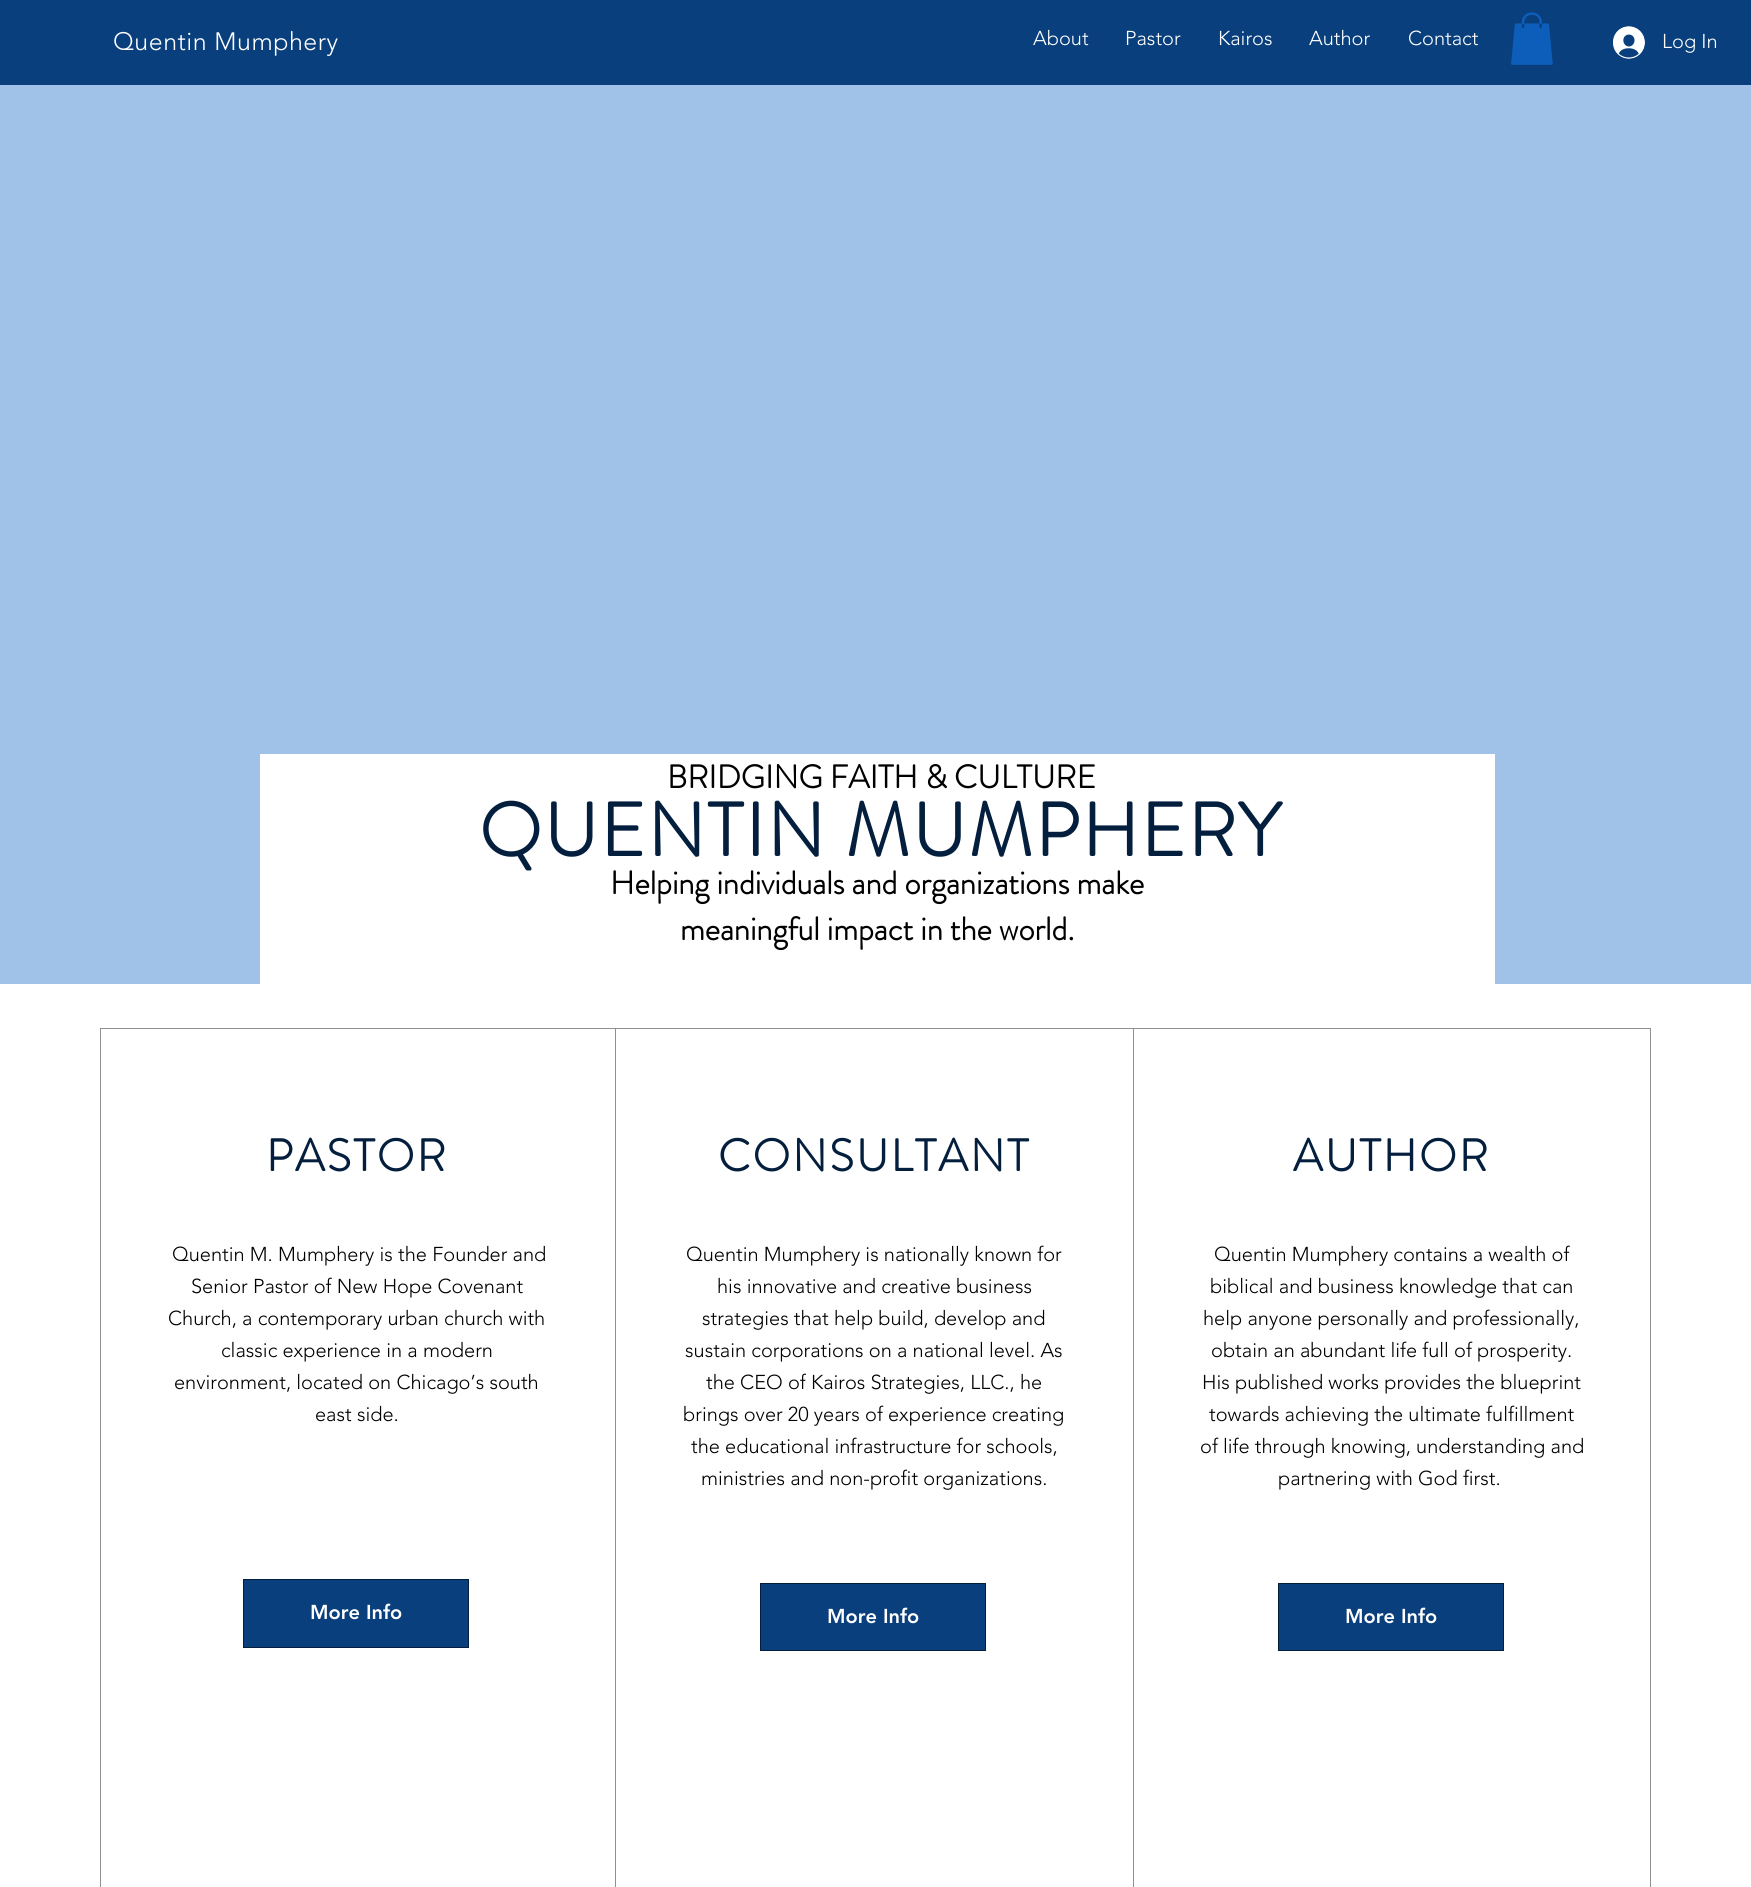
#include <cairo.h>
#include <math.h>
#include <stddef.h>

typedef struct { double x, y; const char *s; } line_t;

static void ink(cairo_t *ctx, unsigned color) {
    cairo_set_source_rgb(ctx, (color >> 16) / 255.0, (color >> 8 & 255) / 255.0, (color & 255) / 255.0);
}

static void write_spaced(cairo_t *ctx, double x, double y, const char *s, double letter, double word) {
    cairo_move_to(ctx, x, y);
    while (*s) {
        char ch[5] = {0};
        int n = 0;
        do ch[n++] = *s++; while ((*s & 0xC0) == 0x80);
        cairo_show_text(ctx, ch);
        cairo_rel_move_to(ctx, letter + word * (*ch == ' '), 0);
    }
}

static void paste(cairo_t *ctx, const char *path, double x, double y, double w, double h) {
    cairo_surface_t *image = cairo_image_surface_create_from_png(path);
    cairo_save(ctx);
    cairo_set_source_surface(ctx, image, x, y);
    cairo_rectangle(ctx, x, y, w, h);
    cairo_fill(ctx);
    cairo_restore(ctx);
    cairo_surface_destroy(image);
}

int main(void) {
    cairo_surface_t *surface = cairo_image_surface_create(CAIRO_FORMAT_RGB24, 1751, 1887);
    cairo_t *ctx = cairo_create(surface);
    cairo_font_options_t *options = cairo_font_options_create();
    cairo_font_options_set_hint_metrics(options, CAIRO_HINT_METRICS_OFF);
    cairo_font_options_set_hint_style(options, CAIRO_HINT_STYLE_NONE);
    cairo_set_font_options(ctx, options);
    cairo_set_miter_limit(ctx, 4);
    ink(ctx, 0xFFFFFF);
    cairo_paint(ctx);
    ink(ctx, 0x093F7C);
    cairo_rectangle(ctx, 0, 0, 1751, 85);
    cairo_fill(ctx);
    cairo_select_font_face(ctx, "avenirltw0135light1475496 Light", CAIRO_FONT_SLANT_NORMAL, CAIRO_FONT_WEIGHT_NORMAL);
    cairo_set_font_size(ctx, 25);
    ink(ctx, 0xFFFFFF);
    write_spaced(ctx, 113, 50, "Quentin Mumphery", 0.5, 0);
    cairo_set_font_size(ctx, 20);
    {
        static const line_t items[] = {
            {1033, 45, "About"},
            {1125, 45, "Pastor"},
            {1218, 45, "Kairos"},
            {1309, 45, "Author"},
            {1408, 45, "Contact"},
        };
        for (size_t i = 0; i < sizeof items / sizeof *items; i++) {
            cairo_move_to(ctx, items[i].x, items[i].y);
            cairo_show_text(ctx, items[i].s);
        }
    }
    paste(ctx, "media/1.png", 1511, 12, 42, 53);
    paste(ctx, "media/2.png", 1613, 26, 32, 33);
    cairo_move_to(ctx, 1662, 48);
    cairo_show_text(ctx, "Log In");
    ink(ctx, 0xA0C2E8);
    cairo_rectangle(ctx, 0, 85, 1751, 899);
    cairo_fill(ctx);
    ink(ctx, 0xFFFFFF);
    cairo_rectangle(ctx, 260, 754, 1235, 230);
    cairo_fill(ctx);
    cairo_select_font_face(ctx, "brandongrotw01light", CAIRO_FONT_SLANT_NORMAL, CAIRO_FONT_WEIGHT_BOLD);
    cairo_set_font_size(ctx, 32.5);
    ink(ctx, 0x000000);
    cairo_move_to(ctx, 667, 788);
    cairo_show_text(ctx, "BRIDGING FAITH & CULTURE");
    cairo_set_font_size(ctx, 75);
    ink(ctx, 0x041F3E);
    write_spaced(ctx, 479, 856, "QUENTIN MUMPHERY", 2.25, 0);
    cairo_set_font_size(ctx, 32.5);
    ink(ctx, 0x000000);
    cairo_move_to(ctx, 610, 894);
    cairo_show_text(ctx, "Helping individuals and organizations make");
    cairo_move_to(ctx, 680, 940);
    cairo_show_text(ctx, "meaningful impact in the world.");
    ink(ctx, 0x909090);
    cairo_rectangle(ctx, 100, 1028, 1551, 859);
    cairo_fill(ctx);
    ink(ctx, 0xFFFFFF);
    cairo_rectangle(ctx, 101, 1029, 514, 858);
    cairo_fill(ctx);
    cairo_set_font_size(ctx, 45);
    ink(ctx, 0x041F3E);
    write_spaced(ctx, 266, 1171, "PASTOR", 2.25, 0);
    cairo_select_font_face(ctx, "avenirltw0135light1475496 Light", CAIRO_FONT_SLANT_NORMAL, CAIRO_FONT_WEIGHT_NORMAL);
    cairo_set_font_size(ctx, 20);
    ink(ctx, 0x000000);
    {
        static const line_t items[] = {
            {172, 1261, "Quentin M. Mumphery is the Founder and"},
            {191, 1293, "Senior Pastor of New Hope Covenant"},
            {168, 1325, "Church, a contemporary urban church with"},
            {221, 1357, "classic experience in a modern"},
            {174, 1389, "environment, located on Chicago’s south"},
            {315, 1421, "east side."},
        };
        for (size_t i = 0; i < sizeof items / sizeof *items; i++) {
            cairo_move_to(ctx, items[i].x, items[i].y);
            cairo_show_text(ctx, items[i].s);
        }
    }
    ink(ctx, 0x093F7C);
    cairo_rectangle(ctx, 243.5, 1579.5, 225, 68);
    cairo_fill_preserve(ctx);
    ink(ctx, 0x041F3E);
    cairo_set_line_width(ctx, 1);
    cairo_stroke(ctx);
    cairo_select_font_face(ctx, "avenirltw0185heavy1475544 Black", CAIRO_FONT_SLANT_NORMAL, CAIRO_FONT_WEIGHT_NORMAL);
    ink(ctx, 0xFFFFFF);
    cairo_move_to(ctx, 310, 1619);
    cairo_show_text(ctx, "More Info");
    cairo_rectangle(ctx, 616, 1029, 517, 858);
    cairo_fill(ctx);
    cairo_select_font_face(ctx, "brandongrotw01light", CAIRO_FONT_SLANT_NORMAL, CAIRO_FONT_WEIGHT_BOLD);
    cairo_set_font_size(ctx, 45);
    ink(ctx, 0x041F3E);
    write_spaced(ctx, 718, 1171, "CONSULTANT", 2.25, 0);
    cairo_select_font_face(ctx, "avenirltw0135light1475496 Light", CAIRO_FONT_SLANT_NORMAL, CAIRO_FONT_WEIGHT_NORMAL);
    cairo_set_font_size(ctx, 20);
    ink(ctx, 0x000000);
    {
        static const line_t items[] = {
            {686, 1261, "Quentin Mumphery is nationally known for"},
            {717, 1293, "his innovative and creative business"},
            {702, 1325, "strategies that help build, develop and"},
            {685, 1357, "sustain corporations on a national level. As"},
            {706, 1389, "the CEO of Kairos Strategies, LLC., he"},
            {683, 1421, "brings over 20 years of experience creating"},
            {691, 1453, "the educational infrastructure for schools,"},
            {701, 1485, "ministries and non-profit organizations."},
        };
        for (size_t i = 0; i < sizeof items / sizeof *items; i++) {
            cairo_move_to(ctx, items[i].x, items[i].y);
            cairo_show_text(ctx, items[i].s);
        }
    }
    ink(ctx, 0x093F7C);
    cairo_rectangle(ctx, 760.5, 1583.5, 225, 67);
    cairo_fill_preserve(ctx);
    ink(ctx, 0x041F3E);
    cairo_stroke(ctx);
    cairo_select_font_face(ctx, "avenirltw0185heavy1475544 Black", CAIRO_FONT_SLANT_NORMAL, CAIRO_FONT_WEIGHT_NORMAL);
    ink(ctx, 0xFFFFFF);
    cairo_move_to(ctx, 827, 1623);
    cairo_show_text(ctx, "More Info");
    cairo_rectangle(ctx, 1134, 1029, 516, 858);
    cairo_fill(ctx);
    cairo_select_font_face(ctx, "brandongrotw01light", CAIRO_FONT_SLANT_NORMAL, CAIRO_FONT_WEIGHT_BOLD);
    cairo_set_font_size(ctx, 45);
    ink(ctx, 0x041F3E);
    write_spaced(ctx, 1293, 1171, "AUTHOR", 2.25, 0);
    cairo_select_font_face(ctx, "avenirltw0135light1475496 Light", CAIRO_FONT_SLANT_NORMAL, CAIRO_FONT_WEIGHT_NORMAL);
    cairo_set_font_size(ctx, 20);
    ink(ctx, 0x000000);
    {
        static const line_t items[] = {
            {1214, 1261, "Quentin Mumphery contains a wealth of"},
            {1210, 1293, "biblical and business knowledge that can"},
            {1203, 1325, "help anyone personally and professionally,"},
            {1211, 1357, "obtain an abundant life full of prosperity."},
            {1202, 1389, "His published works provides the blueprint"},
            {1209, 1421, "towards achieving the ultimate fulfillment"},
            {1200, 1453, "of life through knowing, understanding and"},
            {1278, 1485, "partnering with God first."},
        };
        for (size_t i = 0; i < sizeof items / sizeof *items; i++) {
            cairo_move_to(ctx, items[i].x, items[i].y);
            cairo_show_text(ctx, items[i].s);
        }
    }
    ink(ctx, 0x093F7C);
    cairo_rectangle(ctx, 1278.5, 1583.5, 225, 67);
    cairo_fill_preserve(ctx);
    ink(ctx, 0x041F3E);
    cairo_stroke(ctx);
    cairo_select_font_face(ctx, "avenirltw0185heavy1475544 Black", CAIRO_FONT_SLANT_NORMAL, CAIRO_FONT_WEIGHT_NORMAL);
    ink(ctx, 0xFFFFFF);
    cairo_move_to(ctx, 1345, 1623);
    cairo_show_text(ctx, "More Info");
    cairo_surface_write_to_png(surface, "image.png");
    cairo_font_options_destroy(options);
    cairo_destroy(ctx);
    cairo_surface_destroy(surface);
    return 0;
}
